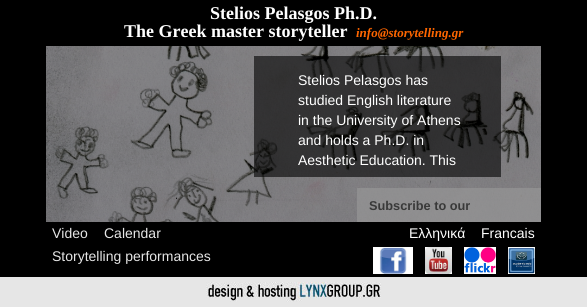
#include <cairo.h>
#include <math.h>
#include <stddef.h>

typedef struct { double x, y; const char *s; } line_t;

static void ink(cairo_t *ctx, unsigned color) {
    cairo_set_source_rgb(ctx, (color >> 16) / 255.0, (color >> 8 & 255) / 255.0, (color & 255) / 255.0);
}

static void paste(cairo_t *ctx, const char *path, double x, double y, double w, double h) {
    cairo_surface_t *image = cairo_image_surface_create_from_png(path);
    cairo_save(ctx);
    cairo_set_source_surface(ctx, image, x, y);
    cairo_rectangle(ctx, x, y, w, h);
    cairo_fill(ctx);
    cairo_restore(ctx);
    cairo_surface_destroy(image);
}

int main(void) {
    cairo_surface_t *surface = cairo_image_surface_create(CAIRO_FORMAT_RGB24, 587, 307);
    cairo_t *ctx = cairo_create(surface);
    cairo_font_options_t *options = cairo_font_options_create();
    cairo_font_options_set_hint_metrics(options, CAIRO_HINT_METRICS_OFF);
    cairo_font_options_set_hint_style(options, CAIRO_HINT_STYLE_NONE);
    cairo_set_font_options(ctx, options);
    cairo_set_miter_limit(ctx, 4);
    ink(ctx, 0x000000);
    cairo_paint(ctx);
    cairo_select_font_face(ctx, "Liberation Serif", CAIRO_FONT_SLANT_NORMAL, CAIRO_FONT_WEIGHT_BOLD);
    cairo_set_font_size(ctx, 18);
    ink(ctx, 0xFFFFFF);
    cairo_move_to(ctx, 210, 19);
    cairo_show_text(ctx, "Stelios Pelasgos Ph.D.");
    cairo_move_to(ctx, 124, 37);
    cairo_show_text(ctx, "The Greek master storyteller");
    cairo_select_font_face(ctx, "Liberation Serif", CAIRO_FONT_SLANT_ITALIC, CAIRO_FONT_WEIGHT_BOLD);
    cairo_set_font_size(ctx, 13);
    ink(ctx, 0xFF6600);
    cairo_move_to(ctx, 356, 37);
    cairo_show_text(ctx, "info@storytelling.gr");
    paste(ctx, "media/1.png", 46, 46, 495, 176);
    cairo_set_source_rgba(ctx, 0, 0, 0, 0.6);
    cairo_rectangle(ctx, 254, 56, 247, 121);
    cairo_fill(ctx);
    cairo_select_font_face(ctx, "Liberation Sans", CAIRO_FONT_SLANT_NORMAL, CAIRO_FONT_WEIGHT_NORMAL);
    cairo_set_font_size(ctx, 14);
    ink(ctx, 0xFFFFFF);
    {
        static const line_t items[] = {
            {298, 85, "Stelios Pelasgos has"},
            {298, 105, "studied English literature"},
            {298, 125, "in the University of Athens"},
            {298, 145, "and holds a Ph.D. in"},
            {298, 165, "Aesthetic Education. This"},
        };
        for (size_t i = 0; i < sizeof items / sizeof *items; i++) {
            cairo_move_to(ctx, items[i].x, items[i].y);
            cairo_show_text(ctx, items[i].s);
        }
    }
    cairo_set_source_rgba(ctx, 0.6, 0.6, 0.6, 0.6);
    cairo_rectangle(ctx, 357, 188, 184, 34);
    cairo_fill(ctx);
    cairo_select_font_face(ctx, "Liberation Sans", CAIRO_FONT_SLANT_NORMAL, CAIRO_FONT_WEIGHT_BOLD);
    cairo_set_font_size(ctx, 12.75);
    ink(ctx, 0x393939);
    cairo_move_to(ctx, 369, 210);
    cairo_show_text(ctx, "Subscribe to our");
    cairo_select_font_face(ctx, "Liberation Sans", CAIRO_FONT_SLANT_NORMAL, CAIRO_FONT_WEIGHT_NORMAL);
    cairo_set_font_size(ctx, 14);
    ink(ctx, 0xE6E6E6);
    {
        static const line_t items[] = {
            {52, 238, "Video"},
            {104, 238, "Calendar"},
            {52, 261, "Storytelling performances"},
        };
        for (size_t i = 0; i < sizeof items / sizeof *items; i++) {
            cairo_move_to(ctx, items[i].x, items[i].y);
            cairo_show_text(ctx, items[i].s);
        }
    }
    ink(ctx, 0xFFFFFF);
    cairo_move_to(ctx, 409, 238);
    cairo_show_text(ctx, "Ελληνικά");
    cairo_move_to(ctx, 481, 238);
    cairo_show_text(ctx, "Francais");
    paste(ctx, "media/2.png", 373, 247, 40, 27);
    paste(ctx, "media/3.png", 425, 247, 27, 27);
    paste(ctx, "media/4.png", 464, 247, 32, 27);
    paste(ctx, "media/5.png", 508, 247, 27, 27);
    ink(ctx, 0xE6E6E6);
    cairo_rectangle(ctx, 0, 277, 587, 30);
    cairo_fill(ctx);
    paste(ctx, "media/6.png", 206, 282, 175, 20);
    cairo_surface_write_to_png(surface, "image.png");
    cairo_font_options_destroy(options);
    cairo_destroy(ctx);
    cairo_surface_destroy(surface);
    return 0;
}
